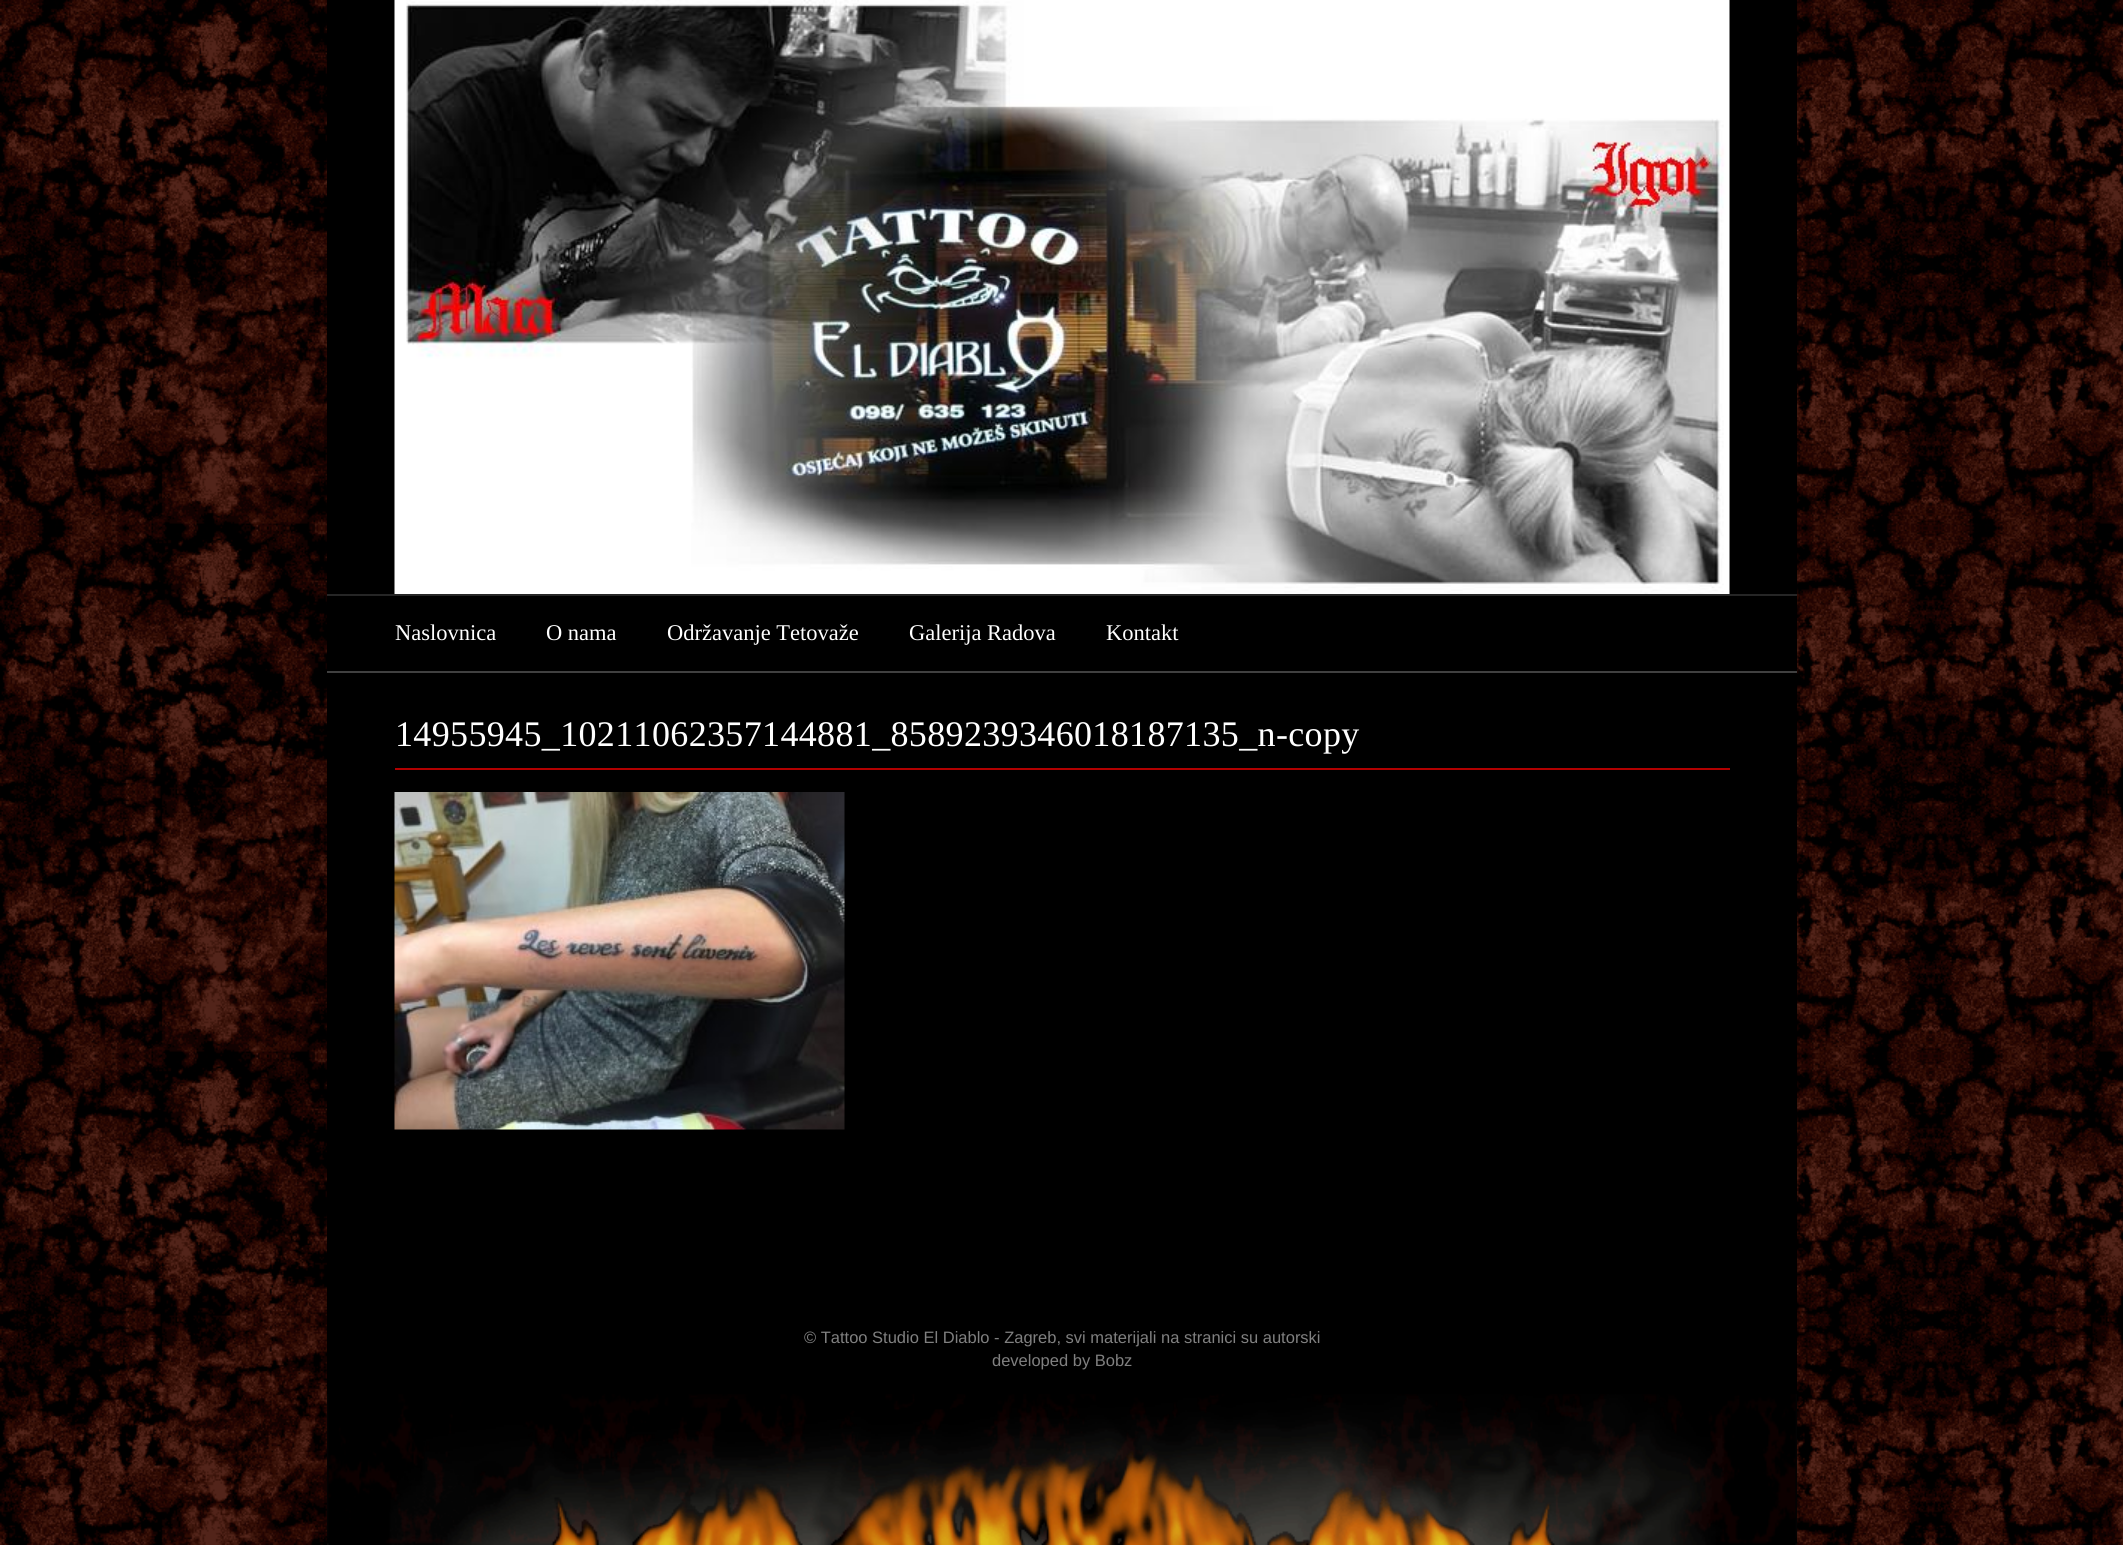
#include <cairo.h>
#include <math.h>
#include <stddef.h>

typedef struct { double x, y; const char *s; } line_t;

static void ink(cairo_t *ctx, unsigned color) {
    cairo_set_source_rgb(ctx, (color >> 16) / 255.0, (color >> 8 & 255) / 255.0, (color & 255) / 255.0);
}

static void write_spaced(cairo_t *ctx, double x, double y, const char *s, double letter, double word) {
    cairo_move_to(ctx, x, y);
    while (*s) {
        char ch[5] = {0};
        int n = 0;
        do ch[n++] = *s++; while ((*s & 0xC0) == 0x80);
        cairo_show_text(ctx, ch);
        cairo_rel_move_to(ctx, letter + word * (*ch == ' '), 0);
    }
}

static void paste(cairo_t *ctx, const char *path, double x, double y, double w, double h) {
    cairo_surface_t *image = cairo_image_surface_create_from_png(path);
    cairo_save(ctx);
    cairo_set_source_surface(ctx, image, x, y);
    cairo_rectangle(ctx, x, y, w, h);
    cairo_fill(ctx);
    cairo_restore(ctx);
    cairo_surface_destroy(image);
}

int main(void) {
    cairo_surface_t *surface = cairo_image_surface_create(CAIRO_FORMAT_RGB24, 2123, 1545);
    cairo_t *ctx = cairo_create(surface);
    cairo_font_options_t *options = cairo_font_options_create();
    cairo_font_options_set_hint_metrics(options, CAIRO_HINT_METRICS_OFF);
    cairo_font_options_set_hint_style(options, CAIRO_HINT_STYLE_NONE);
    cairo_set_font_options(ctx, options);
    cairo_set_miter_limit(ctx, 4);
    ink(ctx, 0xFFFFFF);
    cairo_paint(ctx);
    paste(ctx, "media/1.png", 0, 0, 2123, 1545);
    ink(ctx, 0x000000);
    cairo_rectangle(ctx, 327, 0, 1470, 1394);
    cairo_fill(ctx);
    paste(ctx, "media/2.png", 394, 0, 1336, 594);
    ink(ctx, 0x262626);
    cairo_rectangle(ctx, 327, 594, 1470, 2);
    cairo_fill(ctx);
    ink(ctx, 0x404040);
    cairo_rectangle(ctx, 327, 671, 1470, 2);
    cairo_fill(ctx);
    cairo_select_font_face(ctx, "Liberation Serif", CAIRO_FONT_SLANT_NORMAL, CAIRO_FONT_WEIGHT_NORMAL);
    cairo_set_font_size(ctx, 22.5);
    ink(ctx, 0xFFFFFF);
    {
        static const line_t items[] = {
            {395, 640, "Naslovnica"},
            {546, 640, "O nama"},
            {667, 640, "Održavanje Tetovaže"},
            {909, 640, "Galerija Radova"},
            {1106, 640, "Kontakt"},
        };
        for (size_t i = 0; i < sizeof items / sizeof *items; i++) {
            cairo_move_to(ctx, items[i].x, items[i].y);
            cairo_show_text(ctx, items[i].s);
        }
    }
    ink(ctx, 0xB10000);
    cairo_rectangle(ctx, 395, 768, 1335, 2);
    cairo_fill(ctx);
    cairo_set_font_size(ctx, 36);
    ink(ctx, 0xFFFFFF);
    write_spaced(ctx, 395, 746, "14955945_10211062357144881_8589239346018187135_n-copy", 0.35, 0);
    paste(ctx, "media/3.png", 394, 792, 451, 338);
    cairo_select_font_face(ctx, "Liberation Sans", CAIRO_FONT_SLANT_NORMAL, CAIRO_FONT_WEIGHT_NORMAL);
    cairo_set_font_size(ctx, 16.5);
    ink(ctx, 0x808080);
    cairo_move_to(ctx, 804, 1343);
    cairo_show_text(ctx, "© Tattoo Studio El Diablo - Zagreb, svi materijali na stranici su autorski");
    cairo_move_to(ctx, 992, 1366);
    cairo_show_text(ctx, "developed by Bobz");
    paste(ctx, "media/4.png", 327, 1394, 1470, 151);
    cairo_surface_write_to_png(surface, "image.png");
    cairo_font_options_destroy(options);
    cairo_destroy(ctx);
    cairo_surface_destroy(surface);
    return 0;
}
